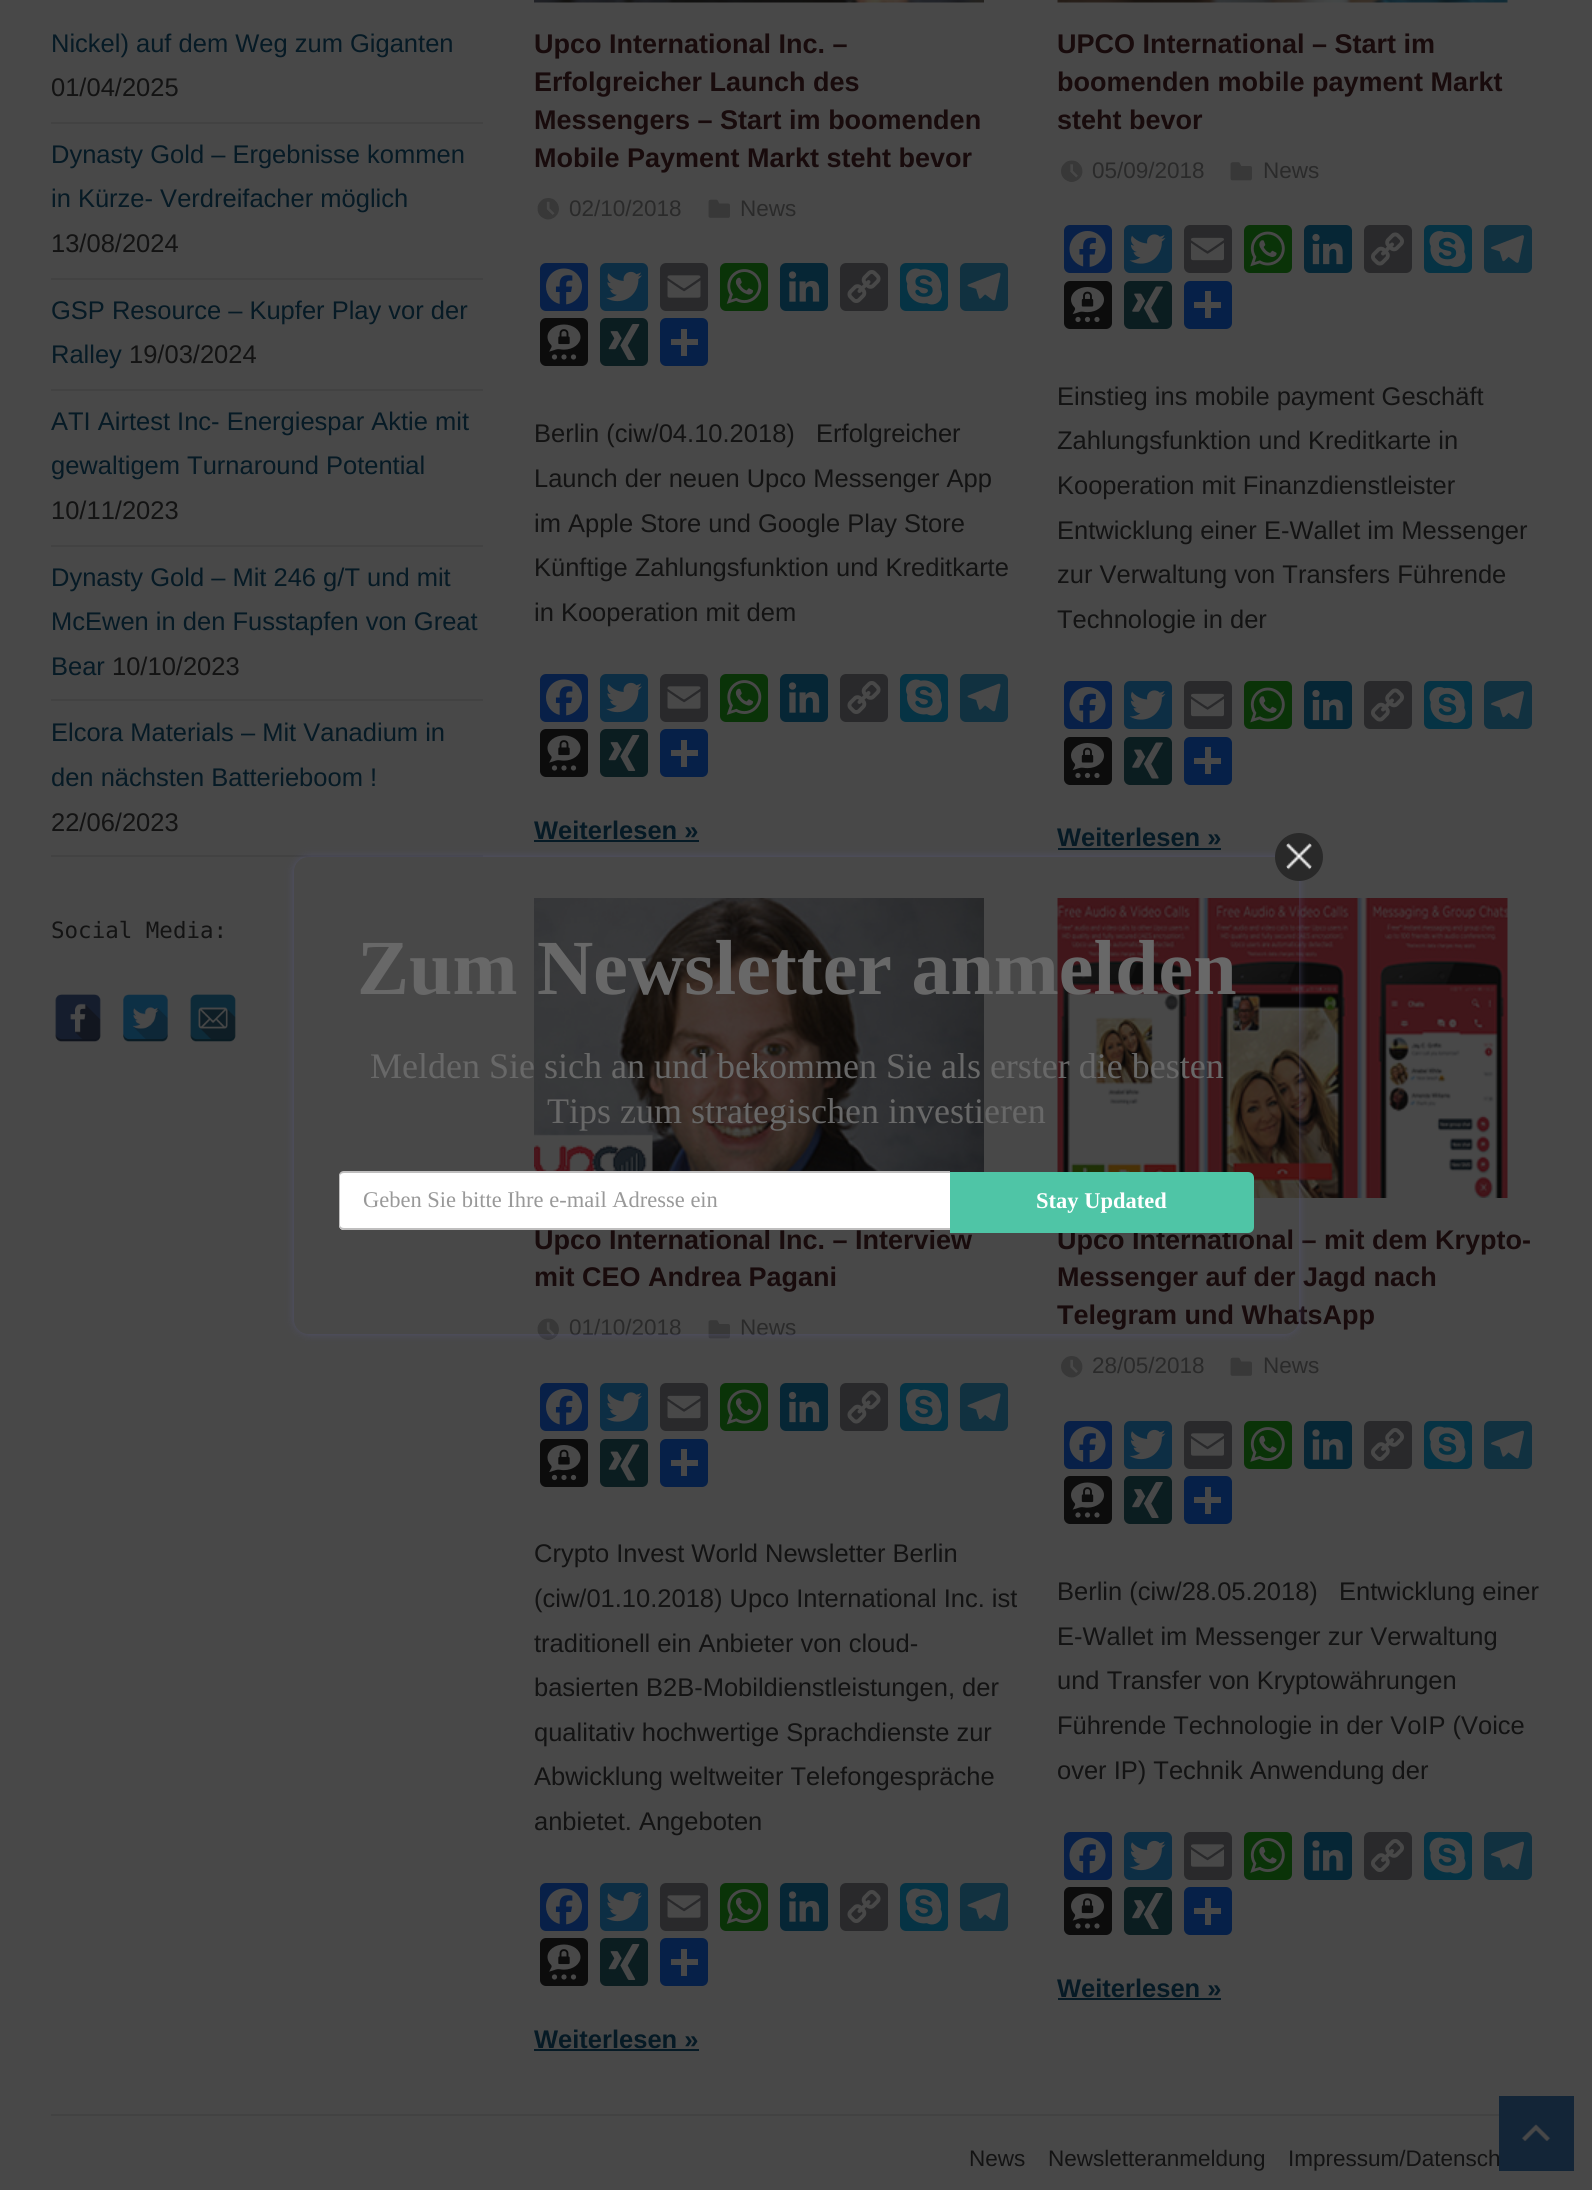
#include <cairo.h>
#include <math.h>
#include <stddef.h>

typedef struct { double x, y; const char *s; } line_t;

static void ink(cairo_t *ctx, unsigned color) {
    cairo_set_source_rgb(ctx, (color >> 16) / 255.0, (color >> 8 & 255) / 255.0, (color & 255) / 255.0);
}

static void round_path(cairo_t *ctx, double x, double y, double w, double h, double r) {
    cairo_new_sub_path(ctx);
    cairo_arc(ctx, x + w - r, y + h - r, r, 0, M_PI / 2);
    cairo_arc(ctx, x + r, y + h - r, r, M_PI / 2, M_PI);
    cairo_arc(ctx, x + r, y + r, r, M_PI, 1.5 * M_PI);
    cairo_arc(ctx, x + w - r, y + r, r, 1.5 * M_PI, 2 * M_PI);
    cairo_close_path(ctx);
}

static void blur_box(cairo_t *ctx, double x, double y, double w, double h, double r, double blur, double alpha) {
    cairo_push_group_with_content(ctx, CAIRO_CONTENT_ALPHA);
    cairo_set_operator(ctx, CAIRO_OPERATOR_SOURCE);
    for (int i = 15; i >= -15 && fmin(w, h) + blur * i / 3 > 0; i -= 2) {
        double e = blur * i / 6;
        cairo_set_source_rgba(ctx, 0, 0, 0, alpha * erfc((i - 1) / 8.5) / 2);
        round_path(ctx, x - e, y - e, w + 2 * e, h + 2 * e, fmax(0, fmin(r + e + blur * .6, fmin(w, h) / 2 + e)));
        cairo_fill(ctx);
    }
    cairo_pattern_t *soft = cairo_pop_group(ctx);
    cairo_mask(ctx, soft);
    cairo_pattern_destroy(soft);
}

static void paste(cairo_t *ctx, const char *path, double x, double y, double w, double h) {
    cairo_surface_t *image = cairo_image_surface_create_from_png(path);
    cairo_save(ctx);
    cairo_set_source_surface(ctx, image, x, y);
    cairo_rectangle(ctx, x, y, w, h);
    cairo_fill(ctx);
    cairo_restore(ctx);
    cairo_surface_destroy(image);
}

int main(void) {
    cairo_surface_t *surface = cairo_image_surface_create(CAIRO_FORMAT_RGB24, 1592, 2190);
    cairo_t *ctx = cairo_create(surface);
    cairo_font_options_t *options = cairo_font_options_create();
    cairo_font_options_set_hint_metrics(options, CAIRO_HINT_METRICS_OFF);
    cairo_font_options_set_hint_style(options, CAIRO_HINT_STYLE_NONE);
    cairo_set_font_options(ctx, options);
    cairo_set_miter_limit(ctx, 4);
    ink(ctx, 0x484848);
    cairo_paint(ctx);
    cairo_select_font_face(ctx, "Arimo", CAIRO_FONT_SLANT_NORMAL, CAIRO_FONT_WEIGHT_NORMAL);
    cairo_set_font_size(ctx, 25.5);
    ink(ctx, 0x061A25);
    cairo_move_to(ctx, 51, 52);
    cairo_show_text(ctx, "Nickel) auf dem Weg zum Giganten");
    ink(ctx, 0x131313);
    cairo_move_to(ctx, 51, 96);
    cairo_show_text(ctx, "01/04/2025");
    ink(ctx, 0x424242);
    cairo_rectangle(ctx, 51, 122, 432, 2);
    cairo_fill(ctx);
    ink(ctx, 0x061A25);
    cairo_move_to(ctx, 51, 163);
    cairo_show_text(ctx, "Dynasty Gold – Ergebnisse kommen");
    cairo_move_to(ctx, 51, 207);
    cairo_show_text(ctx, "in Kürze- Verdreifacher möglich");
    ink(ctx, 0x131313);
    cairo_move_to(ctx, 51, 252);
    cairo_show_text(ctx, "13/08/2024");
    ink(ctx, 0x424242);
    cairo_rectangle(ctx, 51, 278, 432, 2);
    cairo_fill(ctx);
    ink(ctx, 0x061A25);
    cairo_move_to(ctx, 51, 319);
    cairo_show_text(ctx, "GSP Resource – Kupfer Play vor der");
    cairo_move_to(ctx, 51, 363);
    cairo_show_text(ctx, "Ralley");
    ink(ctx, 0x131313);
    cairo_move_to(ctx, 129, 363);
    cairo_show_text(ctx, "19/03/2024");
    ink(ctx, 0x424242);
    cairo_rectangle(ctx, 51, 389, 432, 2);
    cairo_fill(ctx);
    ink(ctx, 0x061A25);
    cairo_move_to(ctx, 51, 430);
    cairo_show_text(ctx, "ATI Airtest Inc- Energiespar Aktie mit");
    cairo_move_to(ctx, 51, 474);
    cairo_show_text(ctx, "gewaltigem Turnaround Potential");
    ink(ctx, 0x131313);
    cairo_move_to(ctx, 51, 519);
    cairo_show_text(ctx, "10/11/2023");
    ink(ctx, 0x424242);
    cairo_rectangle(ctx, 51, 545, 432, 2);
    cairo_fill(ctx);
    ink(ctx, 0x061A25);
    {
        static const line_t items[] = {
            {51, 586, "Dynasty Gold – Mit 246 g/T und mit"},
            {51, 630, "McEwen in den Fusstapfen von Great"},
            {51, 675, "Bear"},
        };
        for (size_t i = 0; i < sizeof items / sizeof *items; i++) {
            cairo_move_to(ctx, items[i].x, items[i].y);
            cairo_show_text(ctx, items[i].s);
        }
    }
    ink(ctx, 0x131313);
    cairo_move_to(ctx, 112, 675);
    cairo_show_text(ctx, "10/10/2023");
    ink(ctx, 0x424242);
    cairo_rectangle(ctx, 51, 699, 432, 2);
    cairo_fill(ctx);
    cairo_rectangle(ctx, 51, 855, 432, 2);
    cairo_fill(ctx);
    ink(ctx, 0x061A25);
    cairo_move_to(ctx, 51, 741);
    cairo_show_text(ctx, "Elcora Materials – Mit Vanadium in");
    cairo_move_to(ctx, 51, 786);
    cairo_show_text(ctx, "den nächsten Batterieboom !");
    ink(ctx, 0x131313);
    cairo_move_to(ctx, 51, 831);
    cairo_show_text(ctx, "22/06/2023");
    cairo_select_font_face(ctx, "DejaVu Sans Mono", CAIRO_FONT_SLANT_NORMAL, CAIRO_FONT_WEIGHT_NORMAL);
    cairo_set_font_size(ctx, 22.5);
    cairo_move_to(ctx, 51, 938);
    cairo_show_text(ctx, "Social Media:");
    paste(ctx, "media/1.png", 55, 994, 46, 48);
    paste(ctx, "media/2.png", 123, 994, 45, 48);
    paste(ctx, "media/3.png", 190, 994, 46, 48);
    paste(ctx, "media/4.png", 534, 0, 450, 3);
    cairo_select_font_face(ctx, "Arimo", CAIRO_FONT_SLANT_NORMAL, CAIRO_FONT_WEIGHT_BOLD);
    cairo_set_font_size(ctx, 27);
    ink(ctx, 0x180B0C);
    {
        static const line_t items[] = {
            {534, 53, "Upco International Inc. –"},
            {534, 91, "Erfolgreicher Launch des"},
            {534, 129, "Messengers – Start im boomenden"},
            {534, 167, "Mobile Payment Markt steht bevor"},
        };
        for (size_t i = 0; i < sizeof items / sizeof *items; i++) {
            cairo_move_to(ctx, items[i].x, items[i].y);
            cairo_show_text(ctx, items[i].s);
        }
    }
    paste(ctx, "media/5.png", 537, 198, 22, 22);
    cairo_select_font_face(ctx, "Arimo", CAIRO_FONT_SLANT_NORMAL, CAIRO_FONT_WEIGHT_NORMAL);
    cairo_set_font_size(ctx, 22.5);
    ink(ctx, 0x2A2A2A);
    cairo_move_to(ctx, 569, 216);
    cairo_show_text(ctx, "02/10/2018");
    paste(ctx, "media/6.png", 708, 199, 22, 19);
    cairo_move_to(ctx, 740, 216);
    cairo_show_text(ctx, "News");
    ink(ctx, 0x082048);
    round_path(ctx, 540, 263, 48, 48, 6);
    cairo_fill(ctx);
    paste(ctx, "media/7.png", 546, 268, 36, 37);
    ink(ctx, 0x0D2E44);
    round_path(ctx, 600, 263, 48, 48, 6);
    cairo_fill(ctx);
    paste(ctx, "media/8.png", 606, 271, 36, 31);
    ink(ctx, 0x29292B);
    round_path(ctx, 660, 263, 48, 48, 6);
    cairo_fill(ctx);
    paste(ctx, "media/9.png", 667, 275, 34, 23);
    ink(ctx, 0x0A3308);
    round_path(ctx, 720, 263, 48, 48, 6);
    cairo_fill(ctx);
    paste(ctx, "media/10.png", 726, 269, 36, 35);
    ink(ctx, 0x062635);
    round_path(ctx, 780, 263, 48, 48, 6);
    cairo_fill(ctx);
    paste(ctx, "media/11.png", 788, 271, 32, 31);
    ink(ctx, 0x29292B);
    round_path(ctx, 840, 263, 48, 48, 6);
    cairo_fill(ctx);
    paste(ctx, "media/12.png", 847, 270, 34, 33);
    ink(ctx, 0x063344);
    round_path(ctx, 900, 263, 48, 48, 6);
    cairo_fill(ctx);
    paste(ctx, "media/13.png", 906, 268, 36, 37);
    ink(ctx, 0x113140);
    round_path(ctx, 960, 263, 48, 48, 6);
    cairo_fill(ctx);
    paste(ctx, "media/14.png", 967, 272, 34, 29);
    ink(ctx, 0x0C0C0C);
    round_path(ctx, 540, 318, 48, 48, 6);
    cairo_fill(ctx);
    paste(ctx, "media/15.png", 547, 324, 34, 36);
    ink(ctx, 0x0B1D20);
    round_path(ctx, 600, 318, 48, 48, 6);
    cairo_fill(ctx);
    paste(ctx, "media/16.png", 608, 324, 32, 36);
    ink(ctx, 0x062048);
    round_path(ctx, 660, 318, 48, 48, 6);
    cairo_fill(ctx);
    ink(ctx, 0x484848);
    cairo_rectangle(ctx, 681, 329, 6, 27);
    cairo_fill(ctx);
    cairo_rectangle(ctx, 671, 339, 27, 6);
    cairo_fill(ctx);
    cairo_set_font_size(ctx, 25.5);
    ink(ctx, 0x131313);
    {
        static const line_t items[] = {
            {534, 442, "Berlin (ciw/04.10.2018)   Erfolgreicher"},
            {534, 487, "Launch der neuen Upco Messenger App"},
            {534, 532, "im Apple Store und Google Play Store"},
            {534, 576, "Künftige Zahlungsfunktion und Kreditkarte"},
            {534, 621, "in Kooperation mit dem"},
        };
        for (size_t i = 0; i < sizeof items / sizeof *items; i++) {
            cairo_move_to(ctx, items[i].x, items[i].y);
            cairo_show_text(ctx, items[i].s);
        }
    }
    ink(ctx, 0x082048);
    round_path(ctx, 540, 674, 48, 48, 6);
    cairo_fill(ctx);
    paste(ctx, "media/7.png", 546, 679, 36, 37);
    ink(ctx, 0x0D2E44);
    round_path(ctx, 600, 674, 48, 48, 6);
    cairo_fill(ctx);
    paste(ctx, "media/8.png", 606, 682, 36, 31);
    ink(ctx, 0x29292B);
    round_path(ctx, 660, 674, 48, 48, 6);
    cairo_fill(ctx);
    paste(ctx, "media/9.png", 667, 686, 34, 23);
    ink(ctx, 0x0A3308);
    round_path(ctx, 720, 674, 48, 48, 6);
    cairo_fill(ctx);
    paste(ctx, "media/10.png", 726, 680, 36, 35);
    ink(ctx, 0x062635);
    round_path(ctx, 780, 674, 48, 48, 6);
    cairo_fill(ctx);
    paste(ctx, "media/11.png", 788, 682, 32, 31);
    ink(ctx, 0x29292B);
    round_path(ctx, 840, 674, 48, 48, 6);
    cairo_fill(ctx);
    paste(ctx, "media/12.png", 847, 681, 34, 33);
    ink(ctx, 0x063344);
    round_path(ctx, 900, 674, 48, 48, 6);
    cairo_fill(ctx);
    paste(ctx, "media/13.png", 906, 679, 36, 37);
    ink(ctx, 0x113140);
    round_path(ctx, 960, 674, 48, 48, 6);
    cairo_fill(ctx);
    paste(ctx, "media/14.png", 967, 683, 34, 29);
    ink(ctx, 0x0C0C0C);
    round_path(ctx, 540, 729, 48, 48, 6);
    cairo_fill(ctx);
    paste(ctx, "media/15.png", 547, 735, 34, 36);
    ink(ctx, 0x0B1D20);
    round_path(ctx, 600, 729, 48, 48, 6);
    cairo_fill(ctx);
    paste(ctx, "media/16.png", 608, 735, 32, 36);
    ink(ctx, 0x062048);
    round_path(ctx, 660, 729, 48, 48, 6);
    cairo_fill(ctx);
    ink(ctx, 0x484848);
    cairo_rectangle(ctx, 681, 740, 6, 27);
    cairo_fill(ctx);
    cairo_rectangle(ctx, 671, 750, 27, 6);
    cairo_fill(ctx);
    cairo_select_font_face(ctx, "Arimo", CAIRO_FONT_SLANT_NORMAL, CAIRO_FONT_WEIGHT_BOLD);
    ink(ctx, 0x061A25);
    cairo_move_to(ctx, 534, 839);
    cairo_show_text(ctx, "Weiterlesen »");
    cairo_rectangle(ctx, 534, 840, 165, 2);
    cairo_fill(ctx);
    paste(ctx, "media/17.png", 1057, 0, 451, 3);
    cairo_set_font_size(ctx, 27);
    ink(ctx, 0x180B0C);
    {
        static const line_t items[] = {
            {1057, 53, "UPCO International – Start im"},
            {1057, 91, "boomenden mobile payment Markt"},
            {1057, 129, "steht bevor"},
        };
        for (size_t i = 0; i < sizeof items / sizeof *items; i++) {
            cairo_move_to(ctx, items[i].x, items[i].y);
            cairo_show_text(ctx, items[i].s);
        }
    }
    paste(ctx, "media/18.png", 1061, 160, 22, 22);
    cairo_select_font_face(ctx, "Arimo", CAIRO_FONT_SLANT_NORMAL, CAIRO_FONT_WEIGHT_NORMAL);
    cairo_set_font_size(ctx, 22.5);
    ink(ctx, 0x2A2A2A);
    cairo_move_to(ctx, 1092, 178);
    cairo_show_text(ctx, "05/09/2018");
    paste(ctx, "media/19.png", 1230, 162, 22, 19);
    cairo_move_to(ctx, 1263, 178);
    cairo_show_text(ctx, "News");
    ink(ctx, 0x082048);
    round_path(ctx, 1064, 225, 48, 48, 6);
    cairo_fill(ctx);
    paste(ctx, "media/20.png", 1069, 231, 37, 36);
    ink(ctx, 0x0D2E44);
    round_path(ctx, 1124, 225, 48, 48, 6);
    cairo_fill(ctx);
    paste(ctx, "media/21.png", 1129, 234, 37, 30);
    ink(ctx, 0x29292B);
    round_path(ctx, 1184, 225, 48, 48, 6);
    cairo_fill(ctx);
    paste(ctx, "media/22.png", 1191, 237, 33, 24);
    ink(ctx, 0x0A3308);
    round_path(ctx, 1244, 225, 48, 48, 6);
    cairo_fill(ctx);
    paste(ctx, "media/23.png", 1250, 231, 35, 36);
    ink(ctx, 0x062635);
    round_path(ctx, 1304, 225, 48, 48, 6);
    cairo_fill(ctx);
    paste(ctx, "media/24.png", 1312, 233, 31, 32);
    ink(ctx, 0x29292B);
    round_path(ctx, 1364, 225, 48, 48, 6);
    cairo_fill(ctx);
    paste(ctx, "media/25.png", 1371, 232, 33, 34);
    ink(ctx, 0x063344);
    round_path(ctx, 1424, 225, 48, 48, 6);
    cairo_fill(ctx);
    paste(ctx, "media/26.png", 1429, 231, 37, 36);
    ink(ctx, 0x113140);
    round_path(ctx, 1484, 225, 48, 48, 6);
    cairo_fill(ctx);
    paste(ctx, "media/27.png", 1491, 235, 33, 28);
    ink(ctx, 0x0C0C0C);
    round_path(ctx, 1064, 281, 48, 48, 6);
    cairo_fill(ctx);
    paste(ctx, "media/28.png", 1071, 287, 33, 36);
    ink(ctx, 0x0B1D20);
    round_path(ctx, 1124, 281, 48, 48, 6);
    cairo_fill(ctx);
    paste(ctx, "media/29.png", 1132, 286, 31, 37);
    ink(ctx, 0x062048);
    round_path(ctx, 1184, 281, 48, 48, 6);
    cairo_fill(ctx);
    ink(ctx, 0x484848);
    cairo_rectangle(ctx, 1205, 291, 6, 27);
    cairo_fill(ctx);
    cairo_rectangle(ctx, 1194, 302, 27, 6);
    cairo_fill(ctx);
    cairo_set_font_size(ctx, 25.5);
    ink(ctx, 0x131313);
    {
        static const line_t items[] = {
            {1057, 405, "Einstieg ins mobile payment Geschäft"},
            {1057, 449, "Zahlungsfunktion und Kreditkarte in"},
            {1057, 494, "Kooperation mit Finanzdienstleister"},
            {1057, 539, "Entwicklung einer E-Wallet im Messenger"},
            {1057, 583, "zur Verwaltung von Transfers Führende"},
            {1057, 628, "Technologie in der"},
        };
        for (size_t i = 0; i < sizeof items / sizeof *items; i++) {
            cairo_move_to(ctx, items[i].x, items[i].y);
            cairo_show_text(ctx, items[i].s);
        }
    }
    ink(ctx, 0x082048);
    round_path(ctx, 1064, 681, 48, 48, 6);
    cairo_fill(ctx);
    paste(ctx, "media/20.png", 1069, 687, 37, 36);
    ink(ctx, 0x0D2E44);
    round_path(ctx, 1124, 681, 48, 48, 6);
    cairo_fill(ctx);
    paste(ctx, "media/21.png", 1129, 690, 37, 30);
    ink(ctx, 0x29292B);
    round_path(ctx, 1184, 681, 48, 48, 6);
    cairo_fill(ctx);
    paste(ctx, "media/22.png", 1191, 693, 33, 24);
    ink(ctx, 0x0A3308);
    round_path(ctx, 1244, 681, 48, 48, 6);
    cairo_fill(ctx);
    paste(ctx, "media/23.png", 1250, 687, 35, 36);
    ink(ctx, 0x062635);
    round_path(ctx, 1304, 681, 48, 48, 6);
    cairo_fill(ctx);
    paste(ctx, "media/24.png", 1312, 689, 31, 32);
    ink(ctx, 0x29292B);
    round_path(ctx, 1364, 681, 48, 48, 6);
    cairo_fill(ctx);
    paste(ctx, "media/25.png", 1371, 688, 33, 34);
    ink(ctx, 0x063344);
    round_path(ctx, 1424, 681, 48, 48, 6);
    cairo_fill(ctx);
    paste(ctx, "media/26.png", 1429, 687, 37, 36);
    ink(ctx, 0x113140);
    round_path(ctx, 1484, 681, 48, 48, 6);
    cairo_fill(ctx);
    paste(ctx, "media/27.png", 1491, 691, 33, 28);
    ink(ctx, 0x0C0C0C);
    round_path(ctx, 1064, 737, 48, 48, 6);
    cairo_fill(ctx);
    paste(ctx, "media/28.png", 1071, 743, 33, 36);
    ink(ctx, 0x0B1D20);
    round_path(ctx, 1124, 737, 48, 48, 6);
    cairo_fill(ctx);
    paste(ctx, "media/29.png", 1132, 742, 31, 37);
    ink(ctx, 0x062048);
    round_path(ctx, 1184, 737, 48, 48, 6);
    cairo_fill(ctx);
    ink(ctx, 0x484848);
    cairo_rectangle(ctx, 1205, 747, 6, 27);
    cairo_fill(ctx);
    cairo_rectangle(ctx, 1194, 758, 27, 6);
    cairo_fill(ctx);
    cairo_select_font_face(ctx, "Arimo", CAIRO_FONT_SLANT_NORMAL, CAIRO_FONT_WEIGHT_BOLD);
    ink(ctx, 0x061A25);
    cairo_move_to(ctx, 1057, 846);
    cairo_show_text(ctx, "Weiterlesen »");
    cairo_rectangle(ctx, 1058, 848, 163, 2);
    cairo_fill(ctx);
    paste(ctx, "media/30.png", 534, 898, 450, 274);
    cairo_set_font_size(ctx, 27);
    ink(ctx, 0x180B0C);
    cairo_move_to(ctx, 534, 1249);
    cairo_show_text(ctx, "Upco International Inc. – Interview");
    cairo_move_to(ctx, 534, 1286);
    cairo_show_text(ctx, "mit CEO Andrea Pagani");
    paste(ctx, "media/31.png", 537, 1318, 22, 22);
    cairo_select_font_face(ctx, "Arimo", CAIRO_FONT_SLANT_NORMAL, CAIRO_FONT_WEIGHT_NORMAL);
    cairo_set_font_size(ctx, 22.5);
    ink(ctx, 0x2A2A2A);
    cairo_move_to(ctx, 569, 1335);
    cairo_show_text(ctx, "01/10/2018");
    paste(ctx, "media/19.png", 708, 1320, 22, 19);
    cairo_move_to(ctx, 740, 1335);
    cairo_show_text(ctx, "News");
    ink(ctx, 0x082048);
    round_path(ctx, 540, 1383, 48, 48, 6);
    cairo_fill(ctx);
    paste(ctx, "media/32.png", 546, 1389, 36, 36);
    ink(ctx, 0x0D2E44);
    round_path(ctx, 600, 1383, 48, 48, 6);
    cairo_fill(ctx);
    paste(ctx, "media/33.png", 606, 1392, 36, 30);
    ink(ctx, 0x29292B);
    round_path(ctx, 660, 1383, 48, 48, 6);
    cairo_fill(ctx);
    paste(ctx, "media/34.png", 667, 1395, 34, 24);
    ink(ctx, 0x0A3308);
    round_path(ctx, 720, 1383, 48, 48, 6);
    cairo_fill(ctx);
    paste(ctx, "media/35.png", 726, 1389, 36, 36);
    ink(ctx, 0x062635);
    round_path(ctx, 780, 1383, 48, 48, 6);
    cairo_fill(ctx);
    paste(ctx, "media/36.png", 788, 1391, 32, 32);
    ink(ctx, 0x29292B);
    round_path(ctx, 840, 1383, 48, 48, 6);
    cairo_fill(ctx);
    paste(ctx, "media/37.png", 847, 1390, 34, 34);
    ink(ctx, 0x063344);
    round_path(ctx, 900, 1383, 48, 48, 6);
    cairo_fill(ctx);
    paste(ctx, "media/38.png", 906, 1389, 36, 36);
    ink(ctx, 0x113140);
    round_path(ctx, 960, 1383, 48, 48, 6);
    cairo_fill(ctx);
    paste(ctx, "media/39.png", 967, 1393, 34, 28);
    ink(ctx, 0x0C0C0C);
    round_path(ctx, 540, 1439, 48, 48, 6);
    cairo_fill(ctx);
    paste(ctx, "media/40.png", 547, 1445, 34, 36);
    ink(ctx, 0x0B1D20);
    round_path(ctx, 600, 1439, 48, 48, 6);
    cairo_fill(ctx);
    paste(ctx, "media/41.png", 608, 1444, 32, 37);
    ink(ctx, 0x062048);
    round_path(ctx, 660, 1439, 48, 48, 6);
    cairo_fill(ctx);
    ink(ctx, 0x484848);
    cairo_rectangle(ctx, 681, 1449, 6, 27);
    cairo_fill(ctx);
    cairo_rectangle(ctx, 671, 1460, 27, 6);
    cairo_fill(ctx);
    cairo_set_font_size(ctx, 25.5);
    ink(ctx, 0x131313);
    {
        static const line_t items[] = {
            {534, 1562, "Crypto Invest World Newsletter Berlin"},
            {534, 1607, "(ciw/01.10.2018) Upco International Inc. ist"},
            {534, 1652, "traditionell ein Anbieter von cloud-"},
            {534, 1696, "basierten B2B-Mobildienstleistungen, der"},
            {534, 1741, "qualitativ hochwertige Sprachdienste zur"},
            {534, 1785, "Abwicklung weltweiter Telefongespräche"},
            {534, 1830, "anbietet. Angeboten"},
        };
        for (size_t i = 0; i < sizeof items / sizeof *items; i++) {
            cairo_move_to(ctx, items[i].x, items[i].y);
            cairo_show_text(ctx, items[i].s);
        }
    }
    ink(ctx, 0x082048);
    round_path(ctx, 540, 1883, 48, 48, 6);
    cairo_fill(ctx);
    paste(ctx, "media/7.png", 546, 1888, 36, 37);
    ink(ctx, 0x0D2E44);
    round_path(ctx, 600, 1883, 48, 48, 6);
    cairo_fill(ctx);
    paste(ctx, "media/8.png", 606, 1891, 36, 31);
    ink(ctx, 0x29292B);
    round_path(ctx, 660, 1883, 48, 48, 6);
    cairo_fill(ctx);
    paste(ctx, "media/9.png", 667, 1895, 34, 23);
    ink(ctx, 0x0A3308);
    round_path(ctx, 720, 1883, 48, 48, 6);
    cairo_fill(ctx);
    paste(ctx, "media/10.png", 726, 1889, 36, 35);
    ink(ctx, 0x062635);
    round_path(ctx, 780, 1883, 48, 48, 6);
    cairo_fill(ctx);
    paste(ctx, "media/11.png", 788, 1891, 32, 31);
    ink(ctx, 0x29292B);
    round_path(ctx, 840, 1883, 48, 48, 6);
    cairo_fill(ctx);
    paste(ctx, "media/12.png", 847, 1890, 34, 33);
    ink(ctx, 0x063344);
    round_path(ctx, 900, 1883, 48, 48, 6);
    cairo_fill(ctx);
    paste(ctx, "media/13.png", 906, 1888, 36, 37);
    ink(ctx, 0x113140);
    round_path(ctx, 960, 1883, 48, 48, 6);
    cairo_fill(ctx);
    paste(ctx, "media/14.png", 967, 1892, 34, 29);
    ink(ctx, 0x0C0C0C);
    round_path(ctx, 540, 1938, 48, 48, 6);
    cairo_fill(ctx);
    paste(ctx, "media/15.png", 547, 1944, 34, 36);
    ink(ctx, 0x0B1D20);
    round_path(ctx, 600, 1938, 48, 48, 6);
    cairo_fill(ctx);
    paste(ctx, "media/16.png", 608, 1944, 32, 36);
    ink(ctx, 0x062048);
    round_path(ctx, 660, 1938, 48, 48, 6);
    cairo_fill(ctx);
    ink(ctx, 0x484848);
    cairo_rectangle(ctx, 681, 1949, 6, 27);
    cairo_fill(ctx);
    cairo_rectangle(ctx, 671, 1959, 27, 6);
    cairo_fill(ctx);
    cairo_select_font_face(ctx, "Arimo", CAIRO_FONT_SLANT_NORMAL, CAIRO_FONT_WEIGHT_BOLD);
    ink(ctx, 0x061A25);
    cairo_move_to(ctx, 534, 2048);
    cairo_show_text(ctx, "Weiterlesen »");
    cairo_rectangle(ctx, 534, 2049, 165, 2);
    cairo_fill(ctx);
    paste(ctx, "media/42.png", 1057, 898, 451, 300);
    cairo_set_font_size(ctx, 27);
    ink(ctx, 0x180B0C);
    {
        static const line_t items[] = {
            {1057, 1249, "Upco International – mit dem Krypto-"},
            {1057, 1286, "Messenger auf der Jagd nach"},
            {1057, 1324, "Telegram und WhatsApp"},
        };
        for (size_t i = 0; i < sizeof items / sizeof *items; i++) {
            cairo_move_to(ctx, items[i].x, items[i].y);
            cairo_show_text(ctx, items[i].s);
        }
    }
    paste(ctx, "media/43.png", 1061, 1356, 22, 22);
    cairo_select_font_face(ctx, "Arimo", CAIRO_FONT_SLANT_NORMAL, CAIRO_FONT_WEIGHT_NORMAL);
    cairo_set_font_size(ctx, 22.5);
    ink(ctx, 0x2A2A2A);
    cairo_move_to(ctx, 1092, 1373);
    cairo_show_text(ctx, "28/05/2018");
    paste(ctx, "media/6.png", 1230, 1357, 22, 19);
    cairo_move_to(ctx, 1263, 1373);
    cairo_show_text(ctx, "News");
    ink(ctx, 0x082048);
    round_path(ctx, 1064, 1421, 48, 48, 6);
    cairo_fill(ctx);
    paste(ctx, "media/44.png", 1069, 1426, 37, 37);
    ink(ctx, 0x0D2E44);
    round_path(ctx, 1124, 1421, 48, 48, 6);
    cairo_fill(ctx);
    paste(ctx, "media/45.png", 1129, 1429, 37, 31);
    ink(ctx, 0x29292B);
    round_path(ctx, 1184, 1421, 48, 48, 6);
    cairo_fill(ctx);
    paste(ctx, "media/46.png", 1191, 1433, 33, 23);
    ink(ctx, 0x0A3308);
    round_path(ctx, 1244, 1421, 48, 48, 6);
    cairo_fill(ctx);
    paste(ctx, "media/47.png", 1250, 1427, 35, 35);
    ink(ctx, 0x062635);
    round_path(ctx, 1304, 1421, 48, 48, 6);
    cairo_fill(ctx);
    paste(ctx, "media/48.png", 1312, 1429, 31, 31);
    ink(ctx, 0x29292B);
    round_path(ctx, 1364, 1421, 48, 48, 6);
    cairo_fill(ctx);
    paste(ctx, "media/49.png", 1371, 1428, 33, 33);
    ink(ctx, 0x063344);
    round_path(ctx, 1424, 1421, 48, 48, 6);
    cairo_fill(ctx);
    paste(ctx, "media/50.png", 1429, 1426, 37, 37);
    ink(ctx, 0x113140);
    round_path(ctx, 1484, 1421, 48, 48, 6);
    cairo_fill(ctx);
    paste(ctx, "media/51.png", 1491, 1430, 33, 29);
    ink(ctx, 0x0C0C0C);
    round_path(ctx, 1064, 1476, 48, 48, 6);
    cairo_fill(ctx);
    paste(ctx, "media/52.png", 1071, 1482, 33, 36);
    ink(ctx, 0x0B1D20);
    round_path(ctx, 1124, 1476, 48, 48, 6);
    cairo_fill(ctx);
    paste(ctx, "media/53.png", 1132, 1482, 31, 36);
    ink(ctx, 0x062048);
    round_path(ctx, 1184, 1476, 48, 48, 6);
    cairo_fill(ctx);
    ink(ctx, 0x484848);
    cairo_rectangle(ctx, 1205, 1487, 6, 27);
    cairo_fill(ctx);
    cairo_rectangle(ctx, 1194, 1497, 27, 6);
    cairo_fill(ctx);
    cairo_set_font_size(ctx, 25.5);
    ink(ctx, 0x131313);
    {
        static const line_t items[] = {
            {1057, 1600, "Berlin (ciw/28.05.2018)   Entwicklung einer"},
            {1057, 1645, "E-Wallet im Messenger zur Verwaltung"},
            {1057, 1689, "und Transfer von Kryptowährungen"},
            {1057, 1734, "Führende Technologie in der VoIP (Voice"},
            {1057, 1779, "over IP) Technik Anwendung der"},
        };
        for (size_t i = 0; i < sizeof items / sizeof *items; i++) {
            cairo_move_to(ctx, items[i].x, items[i].y);
            cairo_show_text(ctx, items[i].s);
        }
    }
    ink(ctx, 0x082048);
    round_path(ctx, 1064, 1832, 48, 48, 6);
    cairo_fill(ctx);
    paste(ctx, "media/44.png", 1069, 1837, 37, 37);
    ink(ctx, 0x0D2E44);
    round_path(ctx, 1124, 1832, 48, 48, 6);
    cairo_fill(ctx);
    paste(ctx, "media/45.png", 1129, 1840, 37, 31);
    ink(ctx, 0x29292B);
    round_path(ctx, 1184, 1832, 48, 48, 6);
    cairo_fill(ctx);
    paste(ctx, "media/46.png", 1191, 1844, 33, 23);
    ink(ctx, 0x0A3308);
    round_path(ctx, 1244, 1832, 48, 48, 6);
    cairo_fill(ctx);
    paste(ctx, "media/47.png", 1250, 1838, 35, 35);
    ink(ctx, 0x062635);
    round_path(ctx, 1304, 1832, 48, 48, 6);
    cairo_fill(ctx);
    paste(ctx, "media/48.png", 1312, 1840, 31, 31);
    ink(ctx, 0x29292B);
    round_path(ctx, 1364, 1832, 48, 48, 6);
    cairo_fill(ctx);
    paste(ctx, "media/49.png", 1371, 1839, 33, 33);
    ink(ctx, 0x063344);
    round_path(ctx, 1424, 1832, 48, 48, 6);
    cairo_fill(ctx);
    paste(ctx, "media/50.png", 1429, 1837, 37, 37);
    ink(ctx, 0x113140);
    round_path(ctx, 1484, 1832, 48, 48, 6);
    cairo_fill(ctx);
    paste(ctx, "media/51.png", 1491, 1841, 33, 29);
    ink(ctx, 0x0C0C0C);
    round_path(ctx, 1064, 1887, 48, 48, 6);
    cairo_fill(ctx);
    paste(ctx, "media/52.png", 1071, 1893, 33, 36);
    ink(ctx, 0x0B1D20);
    round_path(ctx, 1124, 1887, 48, 48, 6);
    cairo_fill(ctx);
    paste(ctx, "media/53.png", 1132, 1893, 31, 36);
    ink(ctx, 0x062048);
    round_path(ctx, 1184, 1887, 48, 48, 6);
    cairo_fill(ctx);
    ink(ctx, 0x484848);
    cairo_rectangle(ctx, 1205, 1898, 6, 27);
    cairo_fill(ctx);
    cairo_rectangle(ctx, 1194, 1908, 27, 6);
    cairo_fill(ctx);
    cairo_select_font_face(ctx, "Arimo", CAIRO_FONT_SLANT_NORMAL, CAIRO_FONT_WEIGHT_BOLD);
    ink(ctx, 0x061A25);
    cairo_move_to(ctx, 1057, 1997);
    cairo_show_text(ctx, "Weiterlesen »");
    cairo_rectangle(ctx, 1058, 1998, 163, 2);
    cairo_fill(ctx);
    ink(ctx, 0x424242);
    cairo_rectangle(ctx, 51, 2114, 1448, 2);
    cairo_fill(ctx);
    cairo_select_font_face(ctx, "Arimo", CAIRO_FONT_SLANT_NORMAL, CAIRO_FONT_WEIGHT_NORMAL);
    cairo_set_font_size(ctx, 22.5);
    ink(ctx, 0x131313);
    {
        static const line_t items[] = {
            {969, 2166, "News"},
            {1048, 2166, "Newsletteranmeldung"},
            {1288, 2166, "Impressum/Datensch"},
        };
        for (size_t i = 0; i < sizeof items / sizeof *items; i++) {
            cairo_move_to(ctx, items[i].x, items[i].y);
            cairo_show_text(ctx, items[i].s);
        }
    }
    cairo_save(ctx);
    cairo_set_fill_rule(ctx, CAIRO_FILL_RULE_EVEN_ODD);
    cairo_new_path(ctx);
    cairo_move_to(ctx, 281, 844);
    cairo_line_to(ctx, 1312, 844);
    cairo_line_to(ctx, 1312, 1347);
    cairo_line_to(ctx, 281, 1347);
    cairo_close_path(ctx);
    cairo_move_to(ctx, 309, 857);
    cairo_line_to(ctx, 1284, 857);
    cairo_curve_to(ctx, 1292.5, 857, 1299, 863.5, 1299, 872);
    cairo_line_to(ctx, 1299, 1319);
    cairo_curve_to(ctx, 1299, 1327.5, 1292.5, 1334, 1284, 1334);
    cairo_line_to(ctx, 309, 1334);
    cairo_curve_to(ctx, 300.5, 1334, 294, 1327.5, 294, 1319);
    cairo_line_to(ctx, 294, 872);
    cairo_curve_to(ctx, 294, 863.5, 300.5, 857, 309, 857);
    cairo_close_path(ctx);
    cairo_clip(ctx);
    ink(ctx, 0x565683);
    blur_box(ctx, 294, 857, 1005, 477, 15, 4, 0.6);
    cairo_restore(ctx);
    ink(ctx, 0x292929);
    cairo_arc(ctx, 1299, 857, 24, 0, 2 * M_PI);
    cairo_fill(ctx);
    paste(ctx, "media/54.png", 1286, 843, 26, 27);
    cairo_select_font_face(ctx, "Liberation Serif", CAIRO_FONT_SLANT_NORMAL, CAIRO_FONT_WEIGHT_BOLD);
    cairo_set_font_size(ctx, 78);
    ink(ctx, 0x686868);
    cairo_move_to(ctx, 357, 994);
    cairo_show_text(ctx, "Zum Newsletter anmelden");
    cairo_select_font_face(ctx, "Liberation Serif", CAIRO_FONT_SLANT_NORMAL, CAIRO_FONT_WEIGHT_NORMAL);
    cairo_set_font_size(ctx, 36);
    cairo_move_to(ctx, 370, 1078);
    cairo_show_text(ctx, "Melden Sie sich an und bekommen Sie als erster die besten");
    cairo_move_to(ctx, 547, 1123);
    cairo_show_text(ctx, "Tips zum strategischen investieren");
    ink(ctx, 0xFFFFFF);
    cairo_new_path(ctx);
    cairo_move_to(ctx, 344, 1172);
    cairo_line_to(ctx, 950, 1172);
    cairo_line_to(ctx, 950, 1230);
    cairo_line_to(ctx, 344, 1230);
    cairo_curve_to(ctx, 341, 1230, 339, 1228, 339, 1225);
    cairo_line_to(ctx, 339, 1177);
    cairo_curve_to(ctx, 339, 1174, 341, 1172, 344, 1172);
    cairo_close_path(ctx);
    cairo_fill(ctx);
    ink(ctx, 0xBFBEBE);
    cairo_set_fill_rule(ctx, CAIRO_FILL_RULE_EVEN_ODD);
    cairo_new_path(ctx);
    cairo_move_to(ctx, 344, 1171);
    cairo_line_to(ctx, 950, 1171);
    cairo_line_to(ctx, 950, 1230);
    cairo_line_to(ctx, 344, 1230);
    cairo_curve_to(ctx, 341, 1230, 339, 1228, 339, 1225);
    cairo_line_to(ctx, 339, 1176);
    cairo_curve_to(ctx, 339, 1173, 341, 1171, 344, 1171);
    cairo_close_path(ctx);
    cairo_move_to(ctx, 344, 1173);
    cairo_line_to(ctx, 950, 1173);
    cairo_line_to(ctx, 950, 1228);
    cairo_line_to(ctx, 344, 1228);
    cairo_curve_to(ctx, 342, 1228, 340, 1227, 340, 1225);
    cairo_line_to(ctx, 340, 1176);
    cairo_curve_to(ctx, 340, 1174, 342, 1173, 344, 1173);
    cairo_close_path(ctx);
    cairo_fill(ctx);
    cairo_set_font_size(ctx, 22.5);
    ink(ctx, 0x999999);
    cairo_move_to(ctx, 363, 1207);
    cairo_show_text(ctx, "Geben Sie bitte Ihre e-mail Adresse ein");
    ink(ctx, 0x4FC5A6);
    cairo_new_path(ctx);
    cairo_move_to(ctx, 950, 1172);
    cairo_line_to(ctx, 1248, 1172);
    cairo_curve_to(ctx, 1251.5, 1172, 1254, 1174.5, 1254, 1178);
    cairo_line_to(ctx, 1254, 1227);
    cairo_curve_to(ctx, 1254, 1230.5, 1251.5, 1233, 1248, 1233);
    cairo_line_to(ctx, 950, 1233);
    cairo_close_path(ctx);
    cairo_fill(ctx);
    cairo_select_font_face(ctx, "Liberation Serif", CAIRO_FONT_SLANT_NORMAL, CAIRO_FONT_WEIGHT_BOLD);
    ink(ctx, 0xFFFFFF);
    cairo_move_to(ctx, 1036, 1208);
    cairo_show_text(ctx, "Stay Updated");
    ink(ctx, 0x132537);
    cairo_rectangle(ctx, 1499, 2096, 75, 75);
    cairo_fill(ctx);
    paste(ctx, "media/55.png", 1521, 2124, 30, 18);
    cairo_surface_write_to_png(surface, "image.png");
    cairo_font_options_destroy(options);
    cairo_destroy(ctx);
    cairo_surface_destroy(surface);
    return 0;
}
